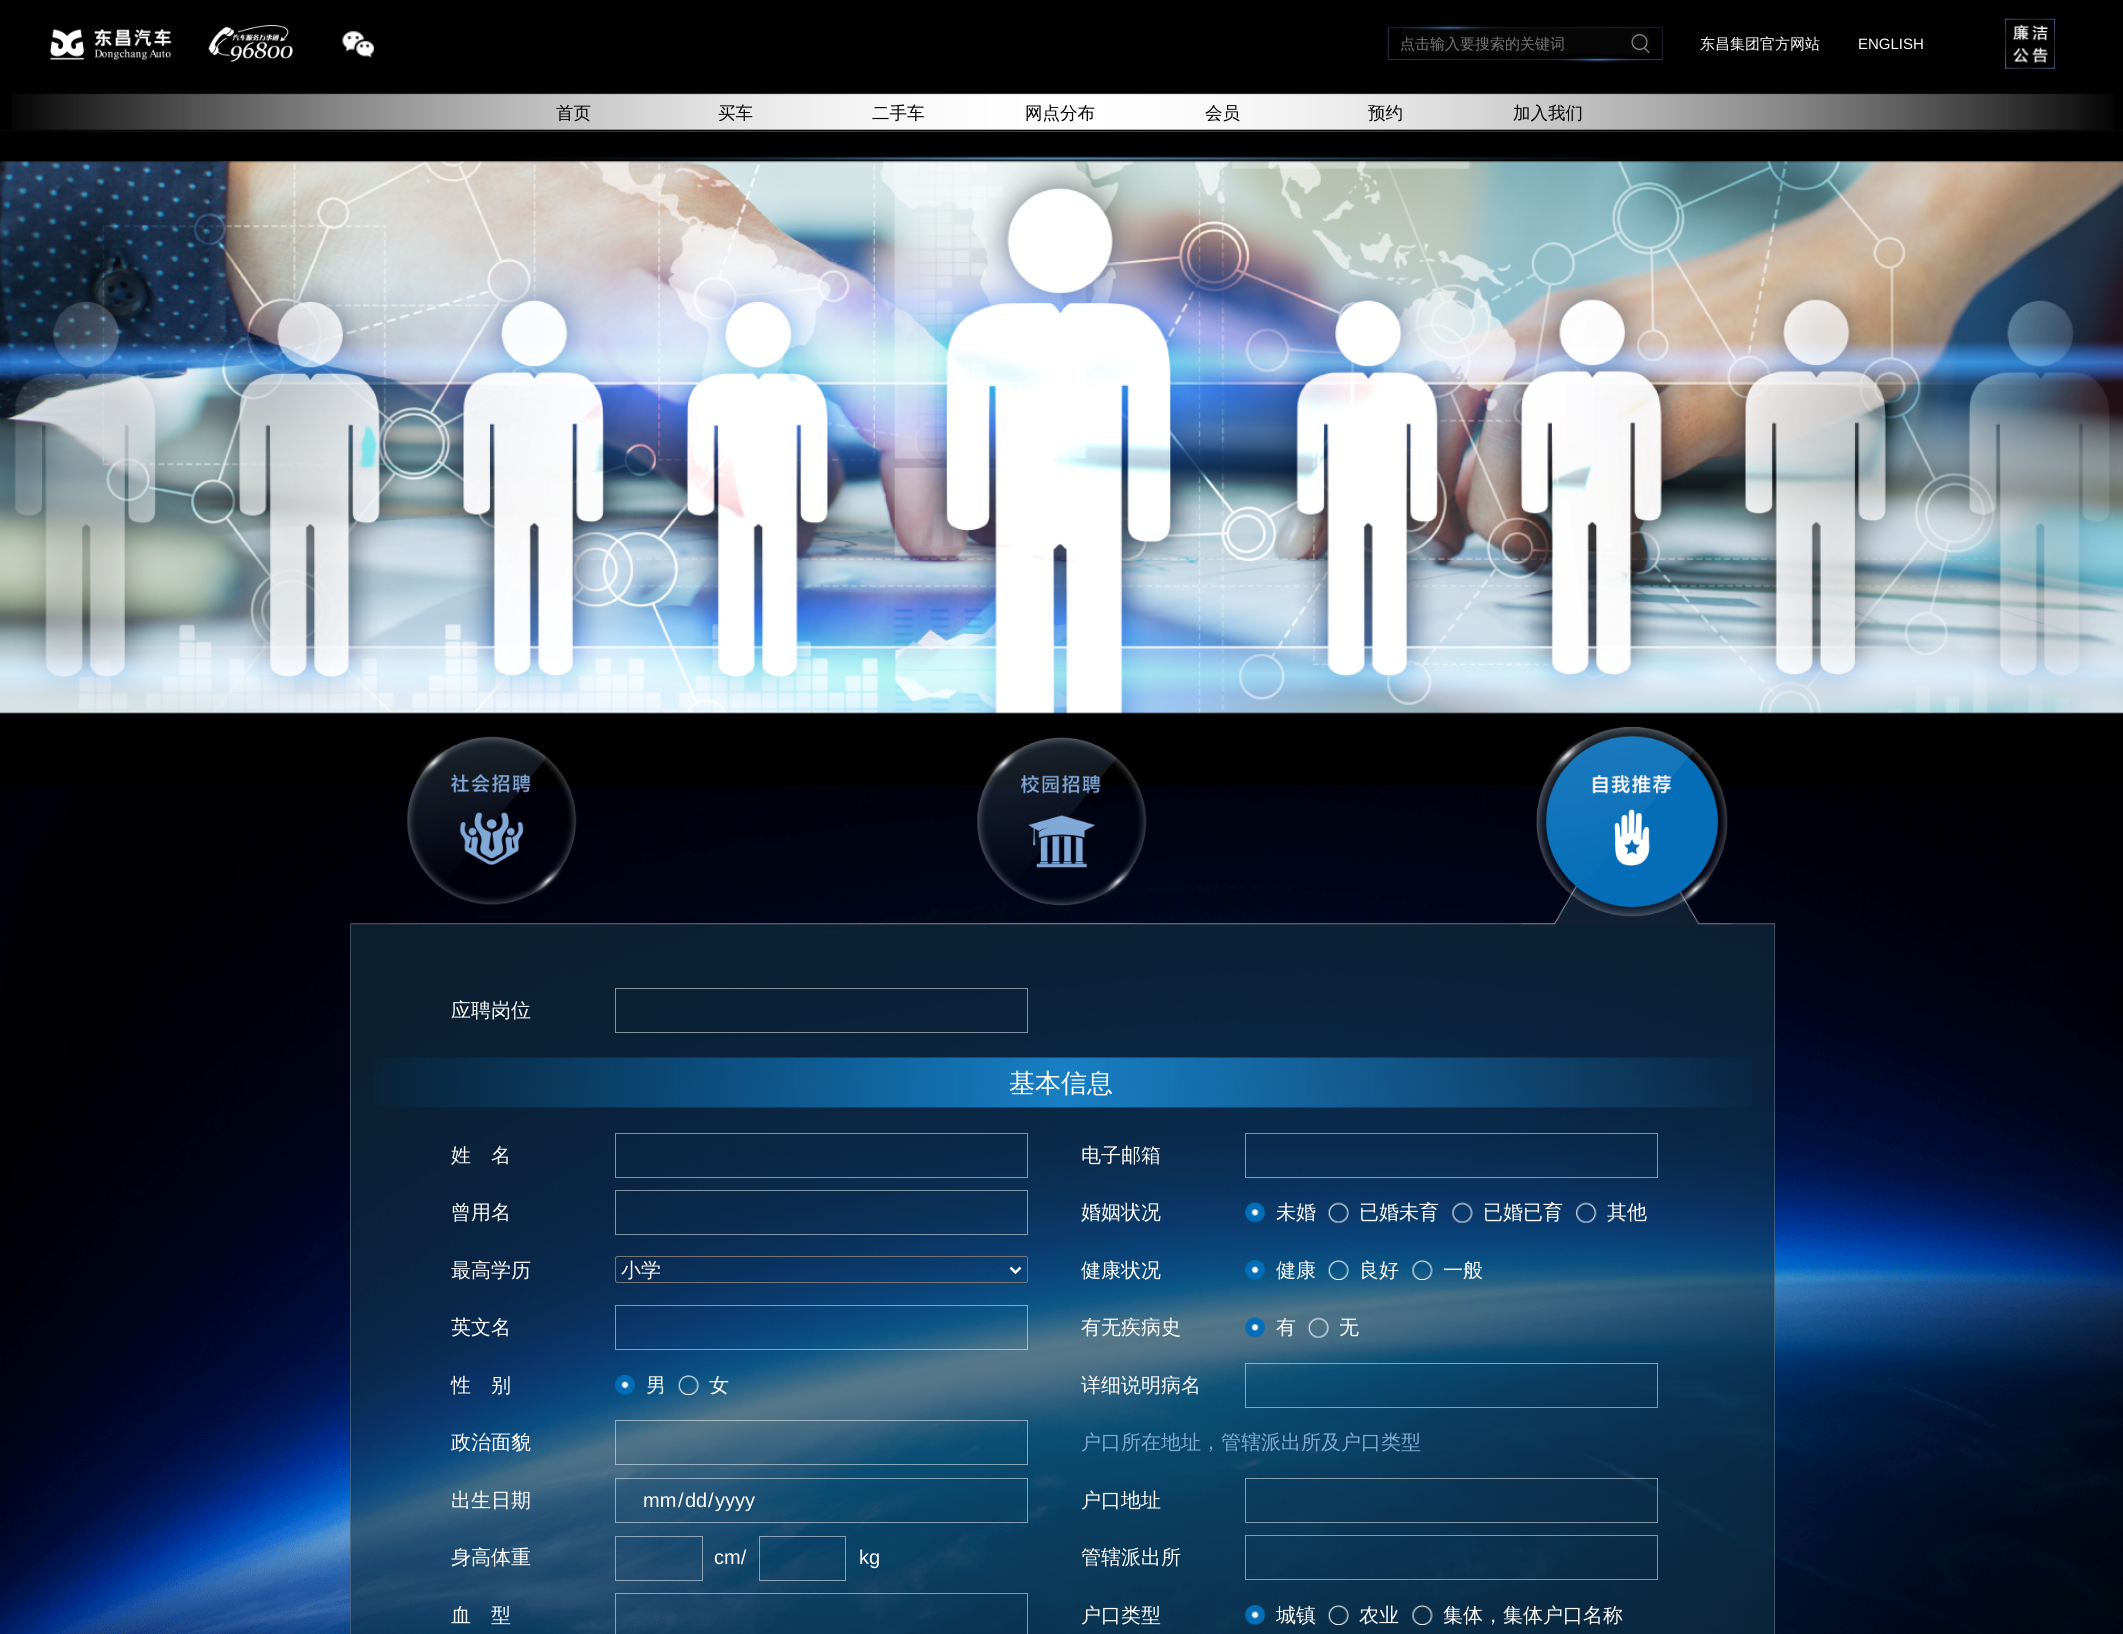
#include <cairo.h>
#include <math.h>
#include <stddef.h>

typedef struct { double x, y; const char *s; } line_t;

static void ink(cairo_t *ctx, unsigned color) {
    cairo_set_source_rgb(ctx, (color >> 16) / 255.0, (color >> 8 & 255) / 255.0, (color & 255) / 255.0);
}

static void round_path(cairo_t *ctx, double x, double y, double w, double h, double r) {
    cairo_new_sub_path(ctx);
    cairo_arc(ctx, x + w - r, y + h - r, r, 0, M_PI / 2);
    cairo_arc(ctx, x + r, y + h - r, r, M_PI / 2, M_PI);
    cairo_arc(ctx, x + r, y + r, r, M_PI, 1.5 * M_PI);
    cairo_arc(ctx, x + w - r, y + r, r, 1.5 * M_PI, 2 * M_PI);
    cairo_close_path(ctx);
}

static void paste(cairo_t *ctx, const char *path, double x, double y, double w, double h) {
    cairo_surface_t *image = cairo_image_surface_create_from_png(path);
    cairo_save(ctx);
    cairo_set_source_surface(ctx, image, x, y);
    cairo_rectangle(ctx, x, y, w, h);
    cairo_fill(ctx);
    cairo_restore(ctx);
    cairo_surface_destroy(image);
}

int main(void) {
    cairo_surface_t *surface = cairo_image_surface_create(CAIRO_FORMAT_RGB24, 2123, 1634);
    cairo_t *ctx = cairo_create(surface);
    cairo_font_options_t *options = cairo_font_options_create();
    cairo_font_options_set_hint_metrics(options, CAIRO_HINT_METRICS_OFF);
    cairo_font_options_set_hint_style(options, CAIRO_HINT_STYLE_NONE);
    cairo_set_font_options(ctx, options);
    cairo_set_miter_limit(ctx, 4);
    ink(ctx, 0x000000);
    cairo_paint(ctx);
    paste(ctx, "media/1.png", 0, 785, 2123, 849);
    paste(ctx, "media/2.png", 50, 28, 122, 32);
    paste(ctx, "media/3.png", 208, 25, 85, 37);
    paste(ctx, "media/4.png", 342, 31, 32, 27);
    paste(ctx, "media/5.png", 1387, 25, 276, 38);
    cairo_select_font_face(ctx, "WenQuanYi Zen Hei Medium", CAIRO_FONT_SLANT_NORMAL, CAIRO_FONT_WEIGHT_NORMAL);
    cairo_set_font_size(ctx, 15);
    ink(ctx, 0x757575);
    cairo_move_to(ctx, 1400, 49);
    cairo_show_text(ctx, "点击输入要搜索的关键词");
    paste(ctx, "media/6.png", 1631, 33, 19, 21);
    ink(ctx, 0xFFFFFF);
    cairo_move_to(ctx, 1700, 49);
    cairo_show_text(ctx, "东昌集团官方网站");
    cairo_select_font_face(ctx, "Liberation Sans", CAIRO_FONT_SLANT_NORMAL, CAIRO_FONT_WEIGHT_NORMAL);
    cairo_move_to(ctx, 1858, 49);
    cairo_show_text(ctx, "ENGLISH");
    paste(ctx, "media/7.png", 2005, 18, 50, 51);
    paste(ctx, "media/8.png", 12, 93, 2102, 39);
    ink(ctx, 0x080808);
    cairo_rectangle(ctx, 0, 130, 2123, 1);
    cairo_fill(ctx);
    cairo_select_font_face(ctx, "WenQuanYi Zen Hei Medium", CAIRO_FONT_SLANT_NORMAL, CAIRO_FONT_WEIGHT_NORMAL);
    cairo_set_font_size(ctx, 17.5);
    ink(ctx, 0x000000);
    {
        static const line_t items[] = {
            {556, 119, "首页"},
            {718, 119, "买车"},
            {872, 119, "二手车"},
            {1025, 119, "网点分布"},
            {1205, 119, "会员"},
            {1368, 119, "预约"},
            {1513, 119, "加入我们"},
        };
        for (size_t i = 0; i < sizeof items / sizeof *items; i++) {
            cairo_move_to(ctx, items[i].x, items[i].y);
            cairo_show_text(ctx, items[i].s);
        }
    }
    paste(ctx, "media/9.png", 512, 156, 1130, 6);
    paste(ctx, "media/10.png", 0, 161, 2123, 553);
    paste(ctx, "media/14.png", 350, 885, 1425, 40);
    paste(ctx, "media/11.png", 407, 736, 170, 169);
    paste(ctx, "media/12.png", 977, 737, 170, 169);
    paste(ctx, "media/13.png", 1536, 726, 192, 191);
    cairo_set_source_rgba(ctx, 0.071, 0.2, 0.271, 0.6);
    cairo_rectangle(ctx, 350, 925, 1425, 709);
    cairo_fill(ctx);
    cairo_set_source_rgba(ctx, 0.427, 0.518, 0.588, 0.5);
    cairo_new_path(ctx);
    cairo_move_to(ctx, 1775, 925);
    cairo_line_to(ctx, 1775, 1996);
    cairo_line_to(ctx, 1774, 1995);
    cairo_line_to(ctx, 1774, 925);
    cairo_close_path(ctx);
    cairo_fill(ctx);
    cairo_new_path(ctx);
    cairo_move_to(ctx, 350, 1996);
    cairo_line_to(ctx, 350, 925);
    cairo_line_to(ctx, 351, 925);
    cairo_line_to(ctx, 351, 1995);
    cairo_close_path(ctx);
    cairo_fill(ctx);
    cairo_set_font_size(ctx, 20);
    ink(ctx, 0xFFFFFF);
    cairo_move_to(ctx, 451, 1017);
    cairo_show_text(ctx, "应聘岗位");
    cairo_rectangle(ctx, 615.5, 988.5, 412, 44);
    cairo_set_source_rgba(ctx, 1, 1, 1, 0.5);
    cairo_set_line_width(ctx, 1);
    cairo_stroke(ctx);
    paste(ctx, "media/15.png", 374, 1057, 1378, 51);
    cairo_set_font_size(ctx, 26);
    ink(ctx, 0xFFFFFF);
    cairo_move_to(ctx, 1009, 1092);
    cairo_show_text(ctx, "基本信息");
    cairo_set_font_size(ctx, 20);
    cairo_move_to(ctx, 451, 1162);
    cairo_show_text(ctx, "姓　名");
    cairo_rectangle(ctx, 615.5, 1133.5, 412, 44);
    cairo_set_source_rgba(ctx, 1, 1, 1, 0.5);
    cairo_stroke(ctx);
    ink(ctx, 0xFFFFFF);
    cairo_move_to(ctx, 1081, 1162);
    cairo_show_text(ctx, "电子邮箱");
    cairo_rectangle(ctx, 1245.5, 1133.5, 412, 44);
    cairo_set_source_rgba(ctx, 1, 1, 1, 0.5);
    cairo_stroke(ctx);
    ink(ctx, 0xFFFFFF);
    cairo_move_to(ctx, 451, 1219);
    cairo_show_text(ctx, "曾用名");
    cairo_rectangle(ctx, 615.5, 1190.5, 412, 44);
    cairo_set_source_rgba(ctx, 1, 1, 1, 0.5);
    cairo_stroke(ctx);
    ink(ctx, 0xFFFFFF);
    cairo_move_to(ctx, 1081, 1219);
    cairo_show_text(ctx, "婚姻状况");
    paste(ctx, "media/16.png", 1245, 1202, 20, 21);
    cairo_move_to(ctx, 1276, 1219);
    cairo_show_text(ctx, "未婚");
    paste(ctx, "media/17.png", 1328, 1202, 21, 21);
    cairo_move_to(ctx, 1359, 1219);
    cairo_show_text(ctx, "已婚未育");
    paste(ctx, "media/18.png", 1452, 1202, 21, 21);
    cairo_move_to(ctx, 1483, 1219);
    cairo_show_text(ctx, "已婚已育");
    paste(ctx, "media/19.png", 1576, 1202, 21, 21);
    cairo_move_to(ctx, 1607, 1219);
    cairo_show_text(ctx, "其他");
    cairo_move_to(ctx, 451, 1277);
    cairo_show_text(ctx, "最高学历");
    round_path(ctx, 615.5, 1256.5, 412, 26, 2);
    ink(ctx, 0x767676);
    cairo_stroke(ctx);
    cairo_new_path(ctx);
    cairo_move_to(ctx, 1010.5, 1267.5);
    cairo_line_to(ctx, 1015.5, 1272.5);
    cairo_line_to(ctx, 1020.5, 1267.5);
    ink(ctx, 0xFFFFFF);
    cairo_set_line_width(ctx, 2.5);
    cairo_stroke(ctx);
    cairo_move_to(ctx, 621, 1277);
    cairo_show_text(ctx, "小学");
    cairo_move_to(ctx, 1081, 1277);
    cairo_show_text(ctx, "健康状况");
    paste(ctx, "media/20.png", 1245, 1260, 20, 20);
    cairo_move_to(ctx, 1276, 1277);
    cairo_show_text(ctx, "健康");
    paste(ctx, "media/21.png", 1328, 1260, 21, 20);
    cairo_move_to(ctx, 1359, 1277);
    cairo_show_text(ctx, "良好");
    paste(ctx, "media/22.png", 1412, 1260, 21, 20);
    cairo_move_to(ctx, 1443, 1277);
    cairo_show_text(ctx, "一般");
    cairo_move_to(ctx, 451, 1334);
    cairo_show_text(ctx, "英文名");
    cairo_rectangle(ctx, 615.5, 1305.5, 412, 44);
    cairo_set_source_rgba(ctx, 1, 1, 1, 0.5);
    cairo_set_line_width(ctx, 1);
    cairo_stroke(ctx);
    ink(ctx, 0xFFFFFF);
    cairo_move_to(ctx, 1081, 1334);
    cairo_show_text(ctx, "有无疾病史");
    paste(ctx, "media/23.png", 1245, 1317, 20, 21);
    cairo_move_to(ctx, 1276, 1334);
    cairo_show_text(ctx, "有");
    paste(ctx, "media/24.png", 1308, 1317, 21, 21);
    cairo_move_to(ctx, 1339, 1334);
    cairo_show_text(ctx, "无");
    cairo_move_to(ctx, 451, 1392);
    cairo_show_text(ctx, "性　别");
    paste(ctx, "media/25.png", 615, 1375, 20, 20);
    cairo_move_to(ctx, 646, 1392);
    cairo_show_text(ctx, "男");
    paste(ctx, "media/26.png", 678, 1375, 21, 20);
    cairo_move_to(ctx, 709, 1392);
    cairo_show_text(ctx, "女");
    cairo_move_to(ctx, 1081, 1392);
    cairo_show_text(ctx, "详细说明病名");
    cairo_rectangle(ctx, 1245.5, 1363.5, 412, 44);
    cairo_set_source_rgba(ctx, 1, 1, 1, 0.5);
    cairo_stroke(ctx);
    ink(ctx, 0xFFFFFF);
    cairo_move_to(ctx, 451, 1449);
    cairo_show_text(ctx, "政治面貌");
    cairo_rectangle(ctx, 615.5, 1420.5, 412, 44);
    cairo_set_source_rgba(ctx, 1, 1, 1, 0.5);
    cairo_stroke(ctx);
    ink(ctx, 0x80A9D8);
    cairo_move_to(ctx, 1081, 1449);
    cairo_show_text(ctx, "户口所在地址，管辖派出所及户口类型");
    ink(ctx, 0xFFFFFF);
    cairo_move_to(ctx, 451, 1507);
    cairo_show_text(ctx, "出生日期");
    cairo_rectangle(ctx, 615.5, 1478.5, 412, 44);
    cairo_set_source_rgba(ctx, 1, 1, 1, 0.5);
    cairo_stroke(ctx);
    cairo_select_font_face(ctx, "Liberation Sans", CAIRO_FONT_SLANT_NORMAL, CAIRO_FONT_WEIGHT_NORMAL);
    ink(ctx, 0xFFFFFF);
    {
        static const line_t items[] = {
            {643, 1507, "mm"},
            {678, 1507, "/"},
            {685, 1507, "dd"},
            {708, 1507, "/"},
            {715, 1507, "yyyy"},
        };
        for (size_t i = 0; i < sizeof items / sizeof *items; i++) {
            cairo_move_to(ctx, items[i].x, items[i].y);
            cairo_show_text(ctx, items[i].s);
        }
    }
    cairo_select_font_face(ctx, "WenQuanYi Zen Hei Medium", CAIRO_FONT_SLANT_NORMAL, CAIRO_FONT_WEIGHT_NORMAL);
    cairo_move_to(ctx, 1081, 1507);
    cairo_show_text(ctx, "户口地址");
    cairo_rectangle(ctx, 1245.5, 1478.5, 412, 44);
    cairo_set_source_rgba(ctx, 1, 1, 1, 0.5);
    cairo_stroke(ctx);
    ink(ctx, 0xFFFFFF);
    cairo_move_to(ctx, 451, 1564);
    cairo_show_text(ctx, "身高体重");
    cairo_rectangle(ctx, 615.5, 1536.5, 87, 44);
    cairo_set_source_rgba(ctx, 1, 1, 1, 0.5);
    cairo_stroke(ctx);
    cairo_select_font_face(ctx, "Liberation Sans", CAIRO_FONT_SLANT_NORMAL, CAIRO_FONT_WEIGHT_NORMAL);
    ink(ctx, 0xFFFFFF);
    cairo_move_to(ctx, 714, 1564);
    cairo_show_text(ctx, "cm/");
    cairo_rectangle(ctx, 759.5, 1536.5, 86, 44);
    cairo_set_source_rgba(ctx, 1, 1, 1, 0.5);
    cairo_stroke(ctx);
    ink(ctx, 0xFFFFFF);
    cairo_move_to(ctx, 859, 1564);
    cairo_show_text(ctx, "kg");
    cairo_select_font_face(ctx, "WenQuanYi Zen Hei Medium", CAIRO_FONT_SLANT_NORMAL, CAIRO_FONT_WEIGHT_NORMAL);
    cairo_move_to(ctx, 1081, 1564);
    cairo_show_text(ctx, "管辖派出所");
    cairo_rectangle(ctx, 1245.5, 1535.5, 412, 44);
    cairo_set_source_rgba(ctx, 1, 1, 1, 0.5);
    cairo_stroke(ctx);
    ink(ctx, 0xFFFFFF);
    cairo_move_to(ctx, 451, 1622);
    cairo_show_text(ctx, "血　型");
    cairo_rectangle(ctx, 615.5, 1593.5, 412, 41);
    cairo_set_source_rgba(ctx, 1, 1, 1, 0.5);
    cairo_stroke(ctx);
    ink(ctx, 0xFFFFFF);
    cairo_move_to(ctx, 1081, 1622);
    cairo_show_text(ctx, "户口类型");
    paste(ctx, "media/27.png", 1245, 1605, 20, 20);
    cairo_move_to(ctx, 1276, 1622);
    cairo_show_text(ctx, "城镇");
    paste(ctx, "media/28.png", 1328, 1605, 21, 20);
    cairo_move_to(ctx, 1359, 1622);
    cairo_show_text(ctx, "农业");
    paste(ctx, "media/29.png", 1412, 1605, 21, 20);
    cairo_move_to(ctx, 1443, 1622);
    cairo_show_text(ctx, "集体，集体户口名称");
    cairo_surface_write_to_png(surface, "image.png");
    cairo_font_options_destroy(options);
    cairo_destroy(ctx);
    cairo_surface_destroy(surface);
    return 0;
}
